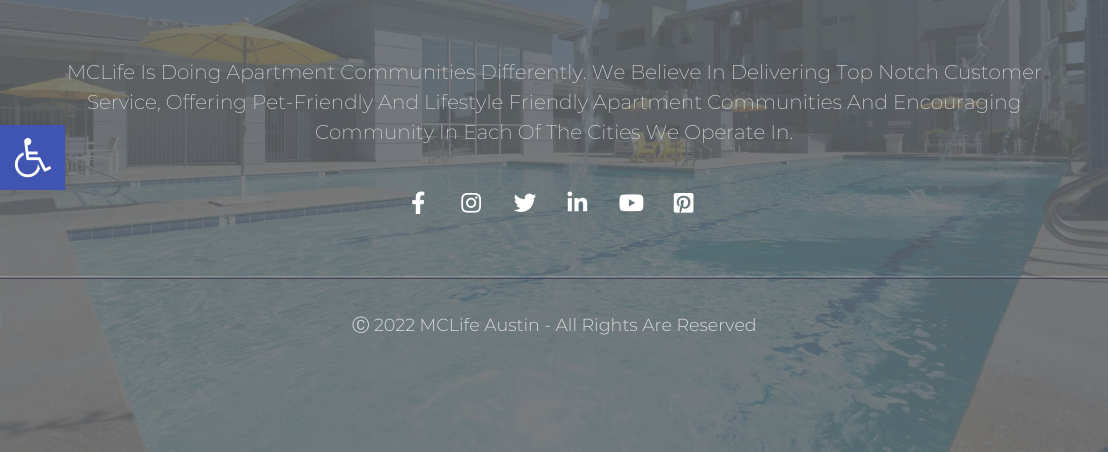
#include <cairo.h>
#include <math.h>
#include <stddef.h>

typedef struct { double x, y; const char *s; } line_t;

static void ink(cairo_t *ctx, unsigned color) {
    cairo_set_source_rgb(ctx, (color >> 16) / 255.0, (color >> 8 & 255) / 255.0, (color & 255) / 255.0);
}

static void round_path(cairo_t *ctx, double x, double y, double w, double h, double r) {
    cairo_new_sub_path(ctx);
    cairo_arc(ctx, x + w - r, y + h - r, r, 0, M_PI / 2);
    cairo_arc(ctx, x + r, y + h - r, r, M_PI / 2, M_PI);
    cairo_arc(ctx, x + r, y + r, r, M_PI, 1.5 * M_PI);
    cairo_arc(ctx, x + w - r, y + r, r, 1.5 * M_PI, 2 * M_PI);
    cairo_close_path(ctx);
}

static void blur_box(cairo_t *ctx, double x, double y, double w, double h, double r, double blur, double alpha) {
    cairo_push_group_with_content(ctx, CAIRO_CONTENT_ALPHA);
    cairo_set_operator(ctx, CAIRO_OPERATOR_SOURCE);
    for (int i = 15; i >= -15 && fmin(w, h) + blur * i / 3 > 0; i -= 2) {
        double e = blur * i / 6;
        cairo_set_source_rgba(ctx, 0, 0, 0, alpha * erfc((i - 1) / 8.5) / 2);
        round_path(ctx, x - e, y - e, w + 2 * e, h + 2 * e, fmax(0, fmin(r + e + blur * .6, fmin(w, h) / 2 + e)));
        cairo_fill(ctx);
    }
    cairo_pattern_t *soft = cairo_pop_group(ctx);
    cairo_mask(ctx, soft);
    cairo_pattern_destroy(soft);
}

static void paste(cairo_t *ctx, const char *path, double x, double y, double w, double h) {
    cairo_surface_t *image = cairo_image_surface_create_from_png(path);
    cairo_save(ctx);
    cairo_set_source_surface(ctx, image, x, y);
    cairo_rectangle(ctx, x, y, w, h);
    cairo_fill(ctx);
    cairo_restore(ctx);
    cairo_surface_destroy(image);
}

int main(void) {
    cairo_surface_t *surface = cairo_image_surface_create(CAIRO_FORMAT_RGB24, 1108, 452);
    cairo_t *ctx = cairo_create(surface);
    cairo_font_options_t *options = cairo_font_options_create();
    cairo_font_options_set_hint_metrics(options, CAIRO_HINT_METRICS_OFF);
    cairo_font_options_set_hint_style(options, CAIRO_HINT_STYLE_NONE);
    cairo_set_font_options(ctx, options);
    cairo_set_miter_limit(ctx, 4);
    ink(ctx, 0xFFFFFF);
    cairo_paint(ctx);
    paste(ctx, "media/2.png", 0, 0, 1108, 452);
    ink(ctx, 0x000000);
    blur_box(ctx, 0, 125, 65, 65, 0, 6, 0.1);
    ink(ctx, 0x4054B2);
    cairo_rectangle(ctx, 0, 125, 65, 65);
    cairo_fill(ctx);
    paste(ctx, "media/1.png", 14, 138, 38, 40);
    cairo_set_source_rgba(ctx, 1, 1, 1, 0.2);
    cairo_rectangle(ctx, 0, 276, 1108, 1);
    cairo_fill(ctx);
    cairo_select_font_face(ctx, "Montserrat ExtraLight", CAIRO_FONT_SLANT_NORMAL, CAIRO_FONT_WEIGHT_NORMAL);
    cairo_set_font_size(ctx, 20);
    ink(ctx, 0xD7D7D9);
    {
        static const line_t items[] = {
            {67, 79, "MCLife Is Doing Apartment Communities Differently. We Believe In Delivering Top Notch Customer"},
            {87, 109, "Service, Offering Pet-Friendly And Lifestyle Friendly Apartment Communities And Encouraging"},
            {315, 139, "Community In Each Of The Cities We Operate In."},
        };
        for (size_t i = 0; i < sizeof items / sizeof *items; i++) {
            cairo_move_to(ctx, items[i].x, items[i].y);
            cairo_show_text(ctx, items[i].s);
        }
    }
    paste(ctx, "media/3.png", 412, 191, 13, 23);
    paste(ctx, "media/4.png", 461, 193, 20, 20);
    paste(ctx, "media/5.png", 514, 193, 22, 19);
    paste(ctx, "media/6.png", 567, 191, 21, 21);
    paste(ctx, "media/7.png", 619, 194, 25, 18);
    paste(ctx, "media/8.png", 673, 193, 21, 20);
    ink(ctx, 0x4B445A);
    cairo_rectangle(ctx, 0, 278, 1108, 1);
    cairo_fill(ctx);
    cairo_select_font_face(ctx, "WenQuanYi Zen Hei Medium", CAIRO_FONT_SLANT_NORMAL, CAIRO_FONT_WEIGHT_NORMAL);
    cairo_set_font_size(ctx, 17.5);
    ink(ctx, 0xD7D7D9);
    cairo_move_to(ctx, 352, 331);
    cairo_show_text(ctx, "Ⓒ");
    cairo_select_font_face(ctx, "Montserrat Light", CAIRO_FONT_SLANT_NORMAL, CAIRO_FONT_WEIGHT_NORMAL);
    cairo_move_to(ctx, 374, 331);
    cairo_show_text(ctx, "2022 MCLife Austin - All Rights Are Reserved");
    cairo_surface_write_to_png(surface, "image.png");
    cairo_font_options_destroy(options);
    cairo_destroy(ctx);
    cairo_surface_destroy(surface);
    return 0;
}
